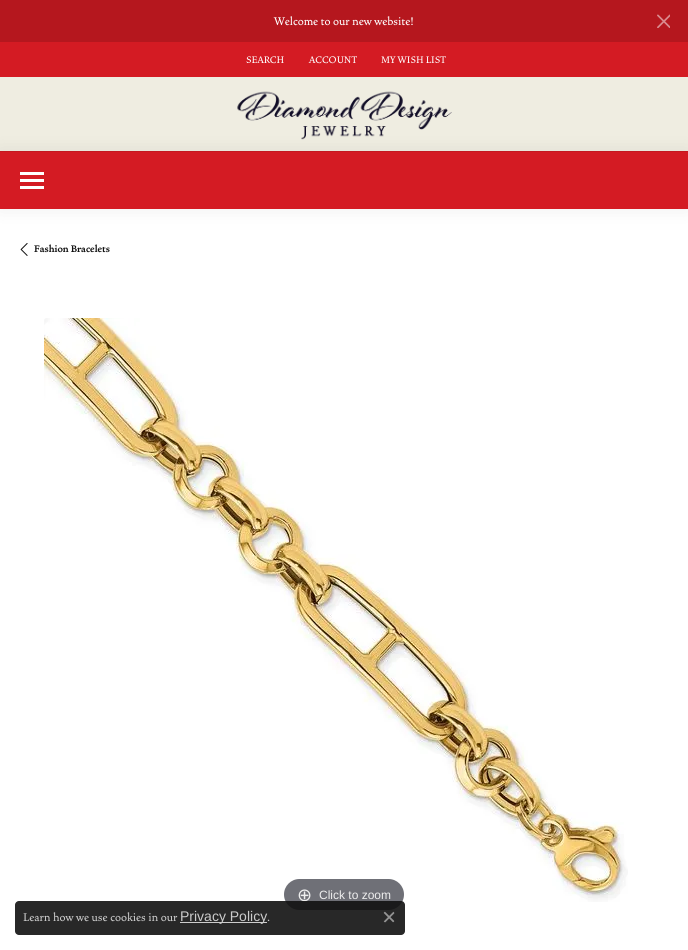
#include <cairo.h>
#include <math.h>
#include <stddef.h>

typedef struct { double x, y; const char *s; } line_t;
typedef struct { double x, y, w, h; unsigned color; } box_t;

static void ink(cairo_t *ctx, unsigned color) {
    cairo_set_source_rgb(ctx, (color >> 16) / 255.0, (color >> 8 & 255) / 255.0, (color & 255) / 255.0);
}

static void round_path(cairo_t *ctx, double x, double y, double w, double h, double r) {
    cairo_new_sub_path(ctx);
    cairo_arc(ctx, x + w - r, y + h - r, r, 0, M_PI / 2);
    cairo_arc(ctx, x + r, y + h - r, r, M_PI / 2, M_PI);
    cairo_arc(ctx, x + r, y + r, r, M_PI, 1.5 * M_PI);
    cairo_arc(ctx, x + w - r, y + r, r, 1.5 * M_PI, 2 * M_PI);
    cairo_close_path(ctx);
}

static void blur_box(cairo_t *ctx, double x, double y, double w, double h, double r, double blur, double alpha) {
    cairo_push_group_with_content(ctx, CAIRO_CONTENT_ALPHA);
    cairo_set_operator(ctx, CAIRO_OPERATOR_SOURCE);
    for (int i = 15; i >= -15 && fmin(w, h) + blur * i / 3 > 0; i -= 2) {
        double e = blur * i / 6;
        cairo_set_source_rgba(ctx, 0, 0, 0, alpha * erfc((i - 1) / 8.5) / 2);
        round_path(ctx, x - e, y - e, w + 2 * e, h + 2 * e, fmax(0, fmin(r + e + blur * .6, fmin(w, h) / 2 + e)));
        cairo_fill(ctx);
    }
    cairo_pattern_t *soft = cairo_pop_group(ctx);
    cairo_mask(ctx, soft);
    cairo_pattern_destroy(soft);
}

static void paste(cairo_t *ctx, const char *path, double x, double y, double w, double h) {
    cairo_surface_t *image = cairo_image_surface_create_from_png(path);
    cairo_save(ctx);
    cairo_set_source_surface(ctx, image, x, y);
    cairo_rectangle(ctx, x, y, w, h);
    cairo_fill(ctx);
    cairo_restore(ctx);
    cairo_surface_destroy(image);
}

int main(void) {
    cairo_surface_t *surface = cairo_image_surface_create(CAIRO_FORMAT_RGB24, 688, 950);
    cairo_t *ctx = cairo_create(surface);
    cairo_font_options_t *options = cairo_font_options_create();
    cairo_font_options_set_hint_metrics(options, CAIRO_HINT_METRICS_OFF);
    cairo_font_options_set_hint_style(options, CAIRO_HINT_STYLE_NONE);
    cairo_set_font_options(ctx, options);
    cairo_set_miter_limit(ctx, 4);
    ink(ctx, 0xFFFFFF);
    cairo_paint(ctx);
    ink(ctx, 0xB5171E);
    cairo_rectangle(ctx, 0, 0, 688, 42);
    cairo_fill(ctx);
    cairo_select_font_face(ctx, "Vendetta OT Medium", CAIRO_FONT_SLANT_NORMAL, CAIRO_FONT_WEIGHT_NORMAL);
    cairo_set_font_size(ctx, 14);
    ink(ctx, 0xFFFFFF);
    cairo_move_to(ctx, 274, 25);
    cairo_show_text(ctx, "Welcome to our new website!");
    paste(ctx, "media/1.png", 657, 14, 13, 14);
    ink(ctx, 0xD41B23);
    cairo_rectangle(ctx, 0, 42, 688, 35);
    cairo_fill(ctx);
    cairo_set_font_size(ctx, 12);
    ink(ctx, 0xFFFFFF);
    {
        static const line_t items[] = {
            {246, 63, "SEARCH"},
            {309, 63, "ACCOUNT"},
            {381, 63, "MY WISH LIST"},
        };
        for (size_t i = 0; i < sizeof items / sizeof *items; i++) {
            cairo_move_to(ctx, items[i].x, items[i].y);
            cairo_show_text(ctx, items[i].s);
        }
    }
    ink(ctx, 0xEFEDE1);
    cairo_rectangle(ctx, 0, 77, 688, 74);
    cairo_fill(ctx);
    paste(ctx, "media/2.png", 237, 91, 215, 49);
    ink(ctx, 0x000000);
    blur_box(ctx, 0, 151, 688, 58, 0, 10, 0.07);
    {
        static const box_t items[] = {
            {0, 152, 688, 57, 0xD41B23},
            {0, 151, 688, 1, 0xC41920},
            {20, 172, 24, 3, 0xFFFFFF},
            {20, 179, 24, 3, 0xFFFFFF},
            {20, 186, 24, 3, 0xFFFFFF},
        };
        for (size_t i = 0; i < sizeof items / sizeof *items; i++) {
            ink(ctx, items[i].color);
            cairo_rectangle(ctx, items[i].x, items[i].y, items[i].w, items[i].h);
            cairo_fill(ctx);
        }
    }
    paste(ctx, "media/3.png", 20, 243, 8, 13);
    cairo_select_font_face(ctx, "Vendetta OT", CAIRO_FONT_SLANT_NORMAL, CAIRO_FONT_WEIGHT_BOLD);
    ink(ctx, 0x111111);
    cairo_move_to(ctx, 34, 252);
    cairo_show_text(ctx, "Fashion Bracelets");
    paste(ctx, "media/4.png", 44, 318, 584, 584);
    ink(ctx, 0x6F7077);
    round_path(ctx, 284, 879, 120, 31, 15.5);
    cairo_fill(ctx);
    cairo_select_font_face(ctx, "DejaVu Sans", CAIRO_FONT_SLANT_NORMAL, CAIRO_FONT_WEIGHT_NORMAL);
    cairo_set_font_size(ctx, 18);
    ink(ctx, 0xEEEEEE);
    cairo_move_to(ctx, 297, 901);
    cairo_show_text(ctx, "⊕");
    cairo_select_font_face(ctx, "Liberation Sans", CAIRO_FONT_SLANT_NORMAL, CAIRO_FONT_WEIGHT_NORMAL);
    cairo_set_font_size(ctx, 12);
    cairo_move_to(ctx, 319, 899);
    cairo_show_text(ctx, "Click to zoom");
    cairo_set_source_rgba(ctx, 0.067, 0.067, 0.067, 0.9);
    round_path(ctx, 15, 901, 390, 34, 4);
    cairo_fill(ctx);
    cairo_select_font_face(ctx, "Vendetta OT Medium", CAIRO_FONT_SLANT_NORMAL, CAIRO_FONT_WEIGHT_NORMAL);
    cairo_set_font_size(ctx, 14);
    ink(ctx, 0xCCCCCC);
    cairo_move_to(ctx, 23, 921);
    cairo_show_text(ctx, "Learn how we use cookies in our");
    cairo_rectangle(ctx, 180, 922, 87, 1);
    cairo_fill(ctx);
    cairo_select_font_face(ctx, "Liberation Sans", CAIRO_FONT_SLANT_NORMAL, CAIRO_FONT_WEIGHT_NORMAL);
    cairo_move_to(ctx, 180, 921);
    cairo_show_text(ctx, "Privacy Policy");
    cairo_select_font_face(ctx, "Vendetta OT Medium", CAIRO_FONT_SLANT_NORMAL, CAIRO_FONT_WEIGHT_NORMAL);
    cairo_move_to(ctx, 267, 921);
    cairo_show_text(ctx, ".");
    paste(ctx, "media/5.png", 383, 911, 12, 12);
    cairo_surface_write_to_png(surface, "image.png");
    cairo_font_options_destroy(options);
    cairo_destroy(ctx);
    cairo_surface_destroy(surface);
    return 0;
}
